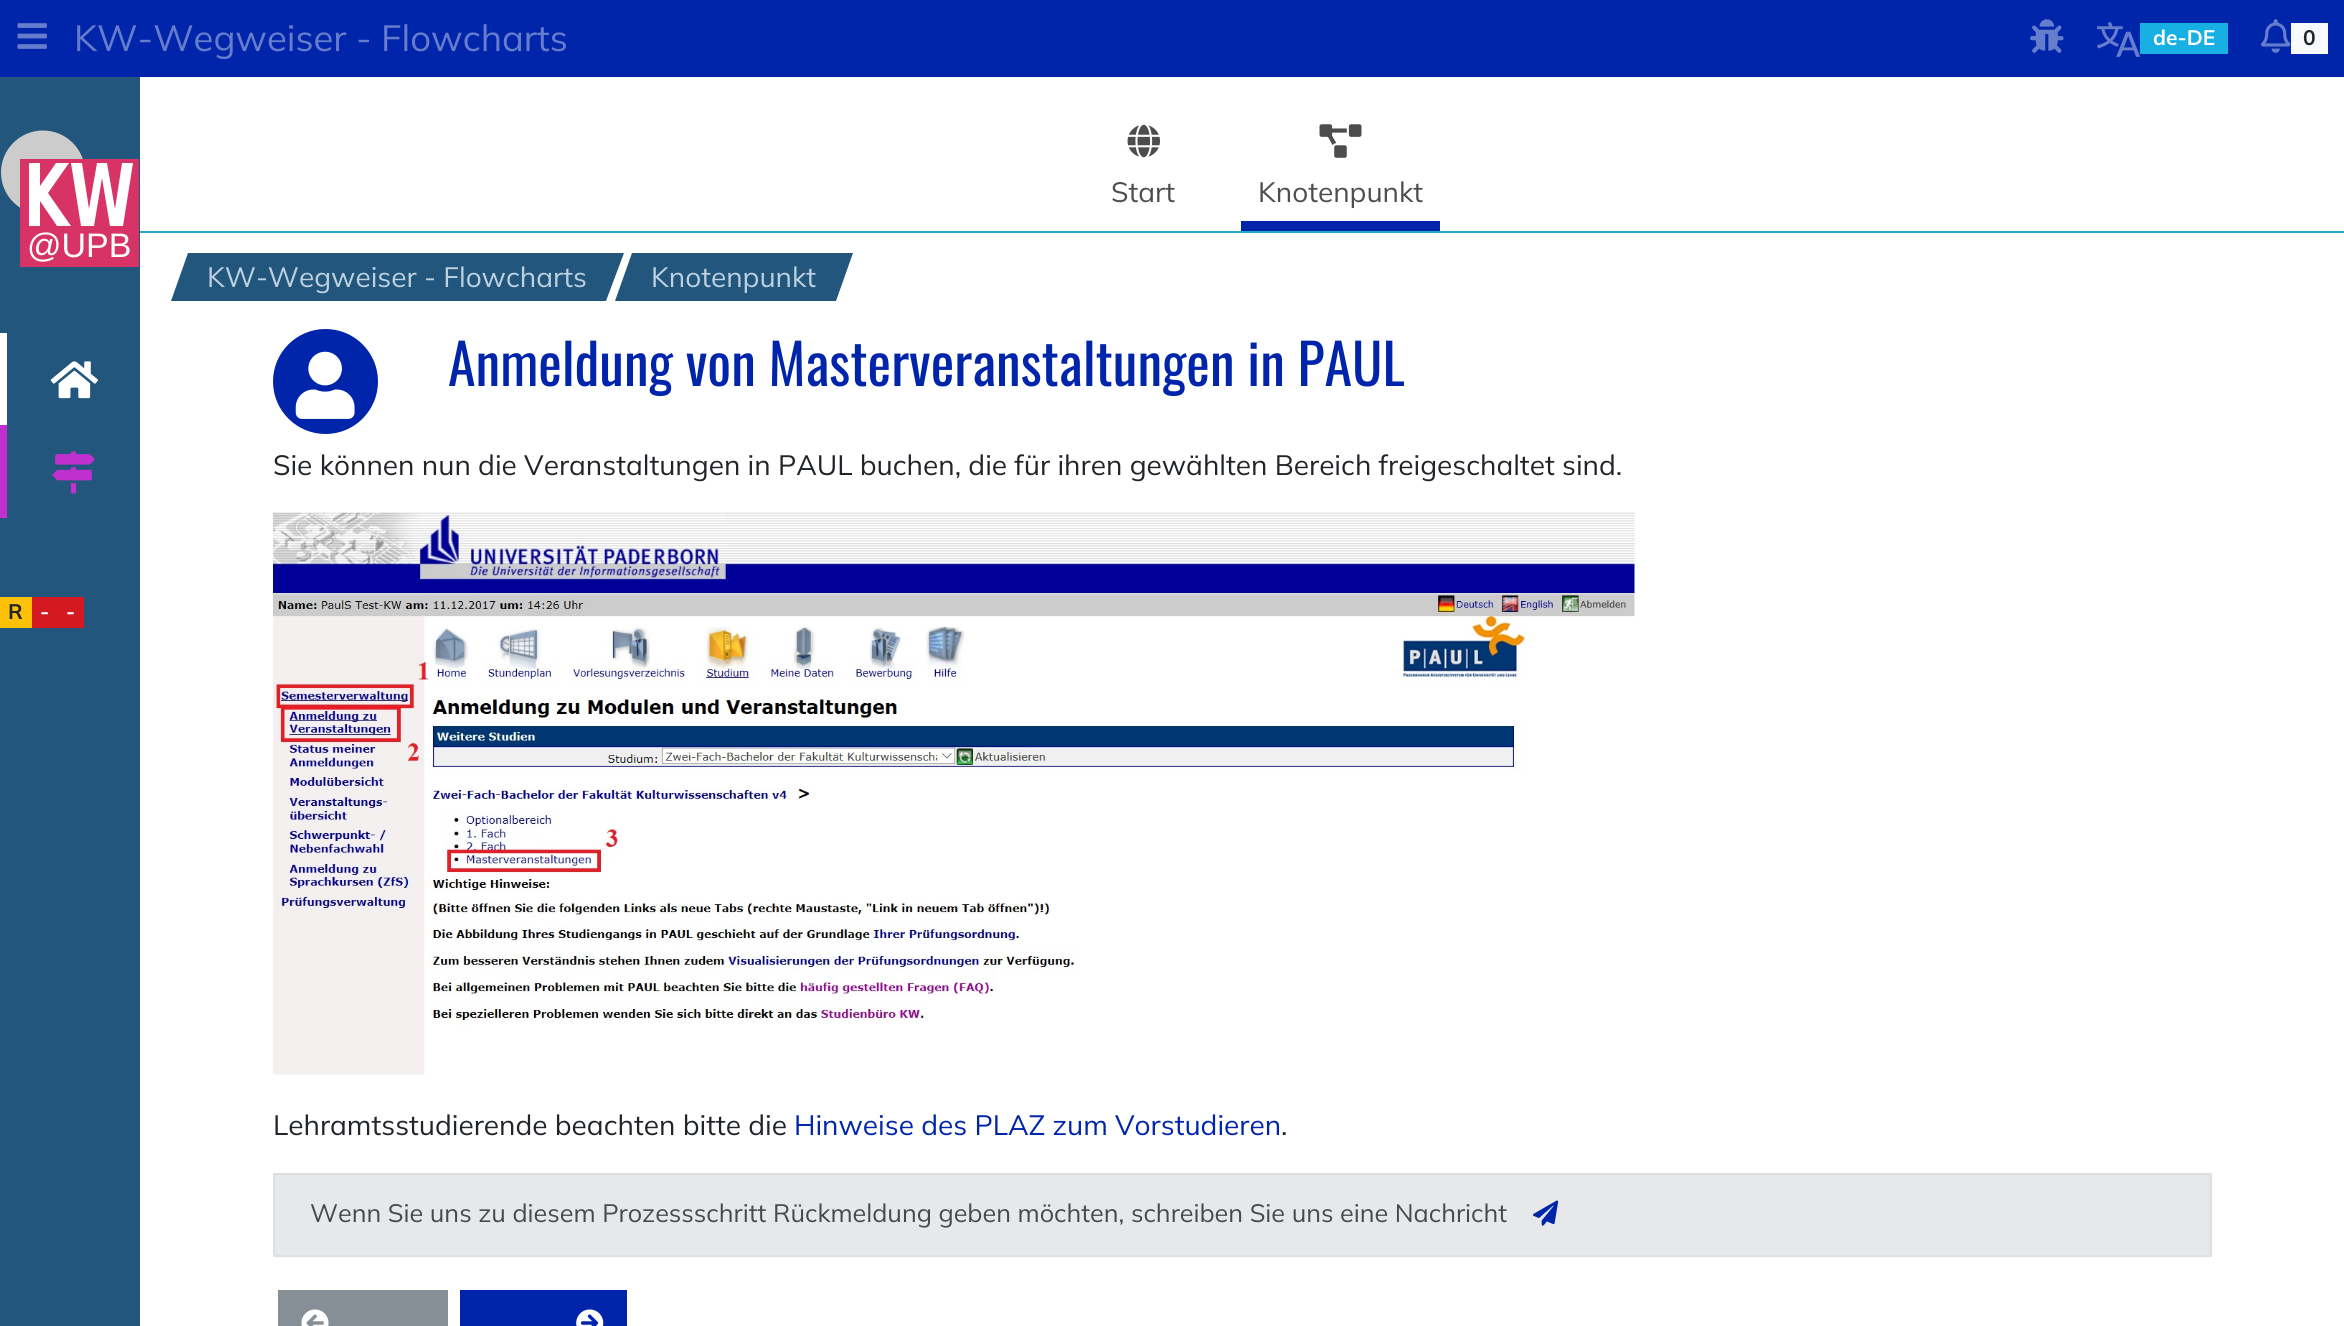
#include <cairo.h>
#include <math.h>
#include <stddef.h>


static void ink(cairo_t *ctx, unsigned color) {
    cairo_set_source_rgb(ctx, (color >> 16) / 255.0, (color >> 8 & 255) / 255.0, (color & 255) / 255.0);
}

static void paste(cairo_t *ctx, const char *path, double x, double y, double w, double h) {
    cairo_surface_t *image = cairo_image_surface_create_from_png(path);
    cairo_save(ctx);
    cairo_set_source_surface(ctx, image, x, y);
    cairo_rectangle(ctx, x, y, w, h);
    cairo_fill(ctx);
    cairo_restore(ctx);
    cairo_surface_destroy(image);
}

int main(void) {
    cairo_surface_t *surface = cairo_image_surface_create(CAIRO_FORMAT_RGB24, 2344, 1326);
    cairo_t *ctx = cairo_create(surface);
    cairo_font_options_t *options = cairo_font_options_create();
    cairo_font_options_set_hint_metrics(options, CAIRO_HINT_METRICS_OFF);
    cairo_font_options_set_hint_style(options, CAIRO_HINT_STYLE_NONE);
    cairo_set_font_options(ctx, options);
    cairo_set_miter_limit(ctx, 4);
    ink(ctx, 0xFFFFFF);
    cairo_paint(ctx);
    ink(ctx, 0x0025AA);
    cairo_rectangle(ctx, 0, 0, 2344, 77);
    cairo_fill(ctx);
    paste(ctx, "media/1.png", 17, 23, 30, 26);
    cairo_select_font_face(ctx, "Mulish", CAIRO_FONT_SLANT_NORMAL, CAIRO_FONT_WEIGHT_NORMAL);
    cairo_set_font_size(ctx, 36.4);
    ink(ctx, 0x667CCC);
    cairo_move_to(ctx, 74, 51);
    cairo_show_text(ctx, "KW-Wegweiser - Flowcharts");
    paste(ctx, "media/2.png", 2030, 19, 34, 34);
    paste(ctx, "media/3.png", 2097, 22, 43, 35);
    ink(ctx, 0x18B0E2);
    cairo_rectangle(ctx, 2140, 23, 88, 31);
    cairo_fill(ctx);
    cairo_select_font_face(ctx, "Mulish", CAIRO_FONT_SLANT_NORMAL, CAIRO_FONT_WEIGHT_BOLD);
    cairo_set_font_size(ctx, 21);
    ink(ctx, 0xFFFFFF);
    cairo_move_to(ctx, 2153, 45);
    cairo_show_text(ctx, "de-DE");
    paste(ctx, "media/4.png", 2261, 19, 30, 34);
    ink(ctx, 0xF8F9FA);
    cairo_rectangle(ctx, 2291, 23, 37, 31);
    cairo_fill(ctx);
    ink(ctx, 0x212529);
    cairo_move_to(ctx, 2303, 45);
    cairo_show_text(ctx, "0");
    ink(ctx, 0x22567C);
    cairo_rectangle(ctx, 0, 77, 140, 1249);
    cairo_fill(ctx);
    ink(ctx, 0xCCCCCC);
    cairo_arc(ctx, 43, 172.5, 42, 0, 2 * M_PI);
    cairo_fill(ctx);
    ink(ctx, 0xD73367);
    cairo_rectangle(ctx, 20, 159, 119, 108);
    cairo_fill(ctx);
    ink(ctx, 0xFFFFFF);
    cairo_set_fill_rule(ctx, CAIRO_FILL_RULE_EVEN_ODD);
    cairo_new_path(ctx);
    cairo_move_to(ctx, 29, 163);
    cairo_line_to(ctx, 40, 163);
    cairo_line_to(ctx, 40, 186);
    cairo_line_to(ctx, 56, 163);
    cairo_line_to(ctx, 69, 163);
    cairo_line_to(ctx, 48, 193);
    cairo_line_to(ctx, 71, 226);
    cairo_line_to(ctx, 57, 226);
    cairo_line_to(ctx, 40, 201);
    cairo_line_to(ctx, 40, 226);
    cairo_line_to(ctx, 29, 226);
    cairo_close_path(ctx);
    cairo_fill(ctx);
    cairo_new_path(ctx);
    cairo_move_to(ctx, 71, 163);
    cairo_line_to(ctx, 82, 163);
    cairo_line_to(ctx, 89, 209);
    cairo_line_to(ctx, 97, 163);
    cairo_line_to(ctx, 107, 163);
    cairo_line_to(ctx, 115, 209);
    cairo_line_to(ctx, 122, 163);
    cairo_line_to(ctx, 133, 163);
    cairo_line_to(ctx, 123, 226);
    cairo_line_to(ctx, 110, 226);
    cairo_line_to(ctx, 102, 178);
    cairo_line_to(ctx, 94, 226);
    cairo_line_to(ctx, 81, 226);
    cairo_close_path(ctx);
    cairo_fill(ctx);
    cairo_select_font_face(ctx, "Liberation Sans", CAIRO_FONT_SLANT_NORMAL, CAIRO_FONT_WEIGHT_NORMAL);
    cairo_set_font_size(ctx, 34);
    cairo_move_to(ctx, 27, 257);
    cairo_show_text(ctx, "@UPB");
    cairo_rectangle(ctx, 0, 333, 7, 92);
    cairo_fill(ctx);
    paste(ctx, "media/5.png", 50, 361, 48, 38);
    ink(ctx, 0xC030CF);
    cairo_rectangle(ctx, 0, 425, 7, 93);
    cairo_fill(ctx);
    paste(ctx, "media/6.png", 52, 451, 43, 43);
    ink(ctx, 0xFFC107);
    cairo_rectangle(ctx, 0, 597, 32, 31);
    cairo_fill(ctx);
    cairo_select_font_face(ctx, "Mulish", CAIRO_FONT_SLANT_NORMAL, CAIRO_FONT_WEIGHT_BOLD);
    cairo_set_font_size(ctx, 21);
    ink(ctx, 0x212529);
    cairo_move_to(ctx, 8, 619);
    cairo_show_text(ctx, "R");
    ink(ctx, 0xD51920);
    cairo_rectangle(ctx, 32, 597, 52, 31);
    cairo_fill(ctx);
    ink(ctx, 0xFFFFFF);
    cairo_move_to(ctx, 40, 619);
    cairo_show_text(ctx, "-");
    cairo_move_to(ctx, 66, 619);
    cairo_show_text(ctx, "-");
    ink(ctx, 0x23A9C9);
    cairo_rectangle(ctx, 140, 231, 2204, 2);
    cairo_fill(ctx);
    paste(ctx, "media/7.png", 1127, 124, 33, 34);
    cairo_select_font_face(ctx, "Mulish", CAIRO_FONT_SLANT_NORMAL, CAIRO_FONT_WEIGHT_NORMAL);
    cairo_set_font_size(ctx, 28);
    ink(ctx, 0x4D4D4D);
    cairo_move_to(ctx, 1111, 202);
    cairo_show_text(ctx, "Start");
    ink(ctx, 0x0025AA);
    cairo_rectangle(ctx, 1241, 221, 199, 10);
    cairo_fill(ctx);
    paste(ctx, "media/8.png", 1319, 124, 43, 34);
    ink(ctx, 0x4D4D4D);
    cairo_move_to(ctx, 1258, 202);
    cairo_show_text(ctx, "Knotenpunkt");
    ink(ctx, 0x22567C);
    cairo_set_fill_rule(ctx, CAIRO_FILL_RULE_WINDING);
    cairo_new_path(ctx);
    cairo_move_to(ctx, 188, 253);
    cairo_line_to(ctx, 624, 253);
    cairo_line_to(ctx, 606, 301);
    cairo_line_to(ctx, 171, 301);
    cairo_close_path(ctx);
    cairo_fill(ctx);
    ink(ctx, 0xBDD1E0);
    cairo_move_to(ctx, 207, 287);
    cairo_show_text(ctx, "KW-Wegweiser - Flowcharts");
    ink(ctx, 0x22567C);
    cairo_new_path(ctx);
    cairo_move_to(ctx, 632, 253);
    cairo_line_to(ctx, 853, 253);
    cairo_line_to(ctx, 836, 301);
    cairo_line_to(ctx, 615, 301);
    cairo_close_path(ctx);
    cairo_fill(ctx);
    ink(ctx, 0xBDD1E0);
    cairo_move_to(ctx, 651, 287);
    cairo_show_text(ctx, "Knotenpunkt");
    ink(ctx, 0x0025AA);
    cairo_new_path(ctx);
    cairo_arc(ctx, 325.5, 381.5, 52.5, 0, 2 * M_PI);
    cairo_fill(ctx);
    paste(ctx, "media/9.png", 295, 351, 60, 68);
    cairo_select_font_face(ctx, "Oswald", CAIRO_FONT_SLANT_NORMAL, CAIRO_FONT_WEIGHT_NORMAL);
    cairo_set_font_size(ctx, 56);
    cairo_move_to(ctx, 448, 386);
    cairo_show_text(ctx, "Anmeldung von Masterveranstaltungen in PAUL");
    cairo_select_font_face(ctx, "Mulish", CAIRO_FONT_SLANT_NORMAL, CAIRO_FONT_WEIGHT_NORMAL);
    cairo_set_font_size(ctx, 28);
    ink(ctx, 0x212529);
    cairo_move_to(ctx, 273, 475);
    cairo_show_text(ctx, "Sie können nun die Veranstaltungen in PAUL buchen, die für ihren gewählten Bereich freigeschaltet sind.");
    paste(ctx, "media/10.png", 273, 512, 1362, 563);
    cairo_move_to(ctx, 273, 1135);
    cairo_show_text(ctx, "Lehramtsstudierende beachten bitte die");
    ink(ctx, 0x0025AA);
    cairo_move_to(ctx, 794, 1135);
    cairo_show_text(ctx, "Hinweise des PLAZ zum Vorstudieren");
    ink(ctx, 0x212529);
    cairo_move_to(ctx, 1281, 1135);
    cairo_show_text(ctx, ".");
    ink(ctx, 0xE7E8EA);
    cairo_rectangle(ctx, 274, 1174, 1937, 82);
    cairo_fill_preserve(ctx);
    ink(ctx, 0xDDDFE2);
    cairo_stroke(ctx);
    cairo_set_font_size(ctx, 25.2);
    ink(ctx, 0x464A4E);
    cairo_move_to(ctx, 310, 1222);
    cairo_show_text(ctx, "Wenn Sie uns zu diesem Prozessschritt Rückmeldung geben möchten, schreiben Sie uns eine Nachricht");
    paste(ctx, "media/11.png", 1533, 1200, 26, 26);
    ink(ctx, 0x868E96);
    cairo_rectangle(ctx, 278, 1290, 170, 36);
    cairo_fill(ctx);
    paste(ctx, "media/12.png", 301, 1309, 28, 17);
    ink(ctx, 0x0025AA);
    cairo_rectangle(ctx, 460, 1290, 167, 36);
    cairo_fill(ctx);
    paste(ctx, "media/13.png", 576, 1309, 28, 17);
    cairo_surface_write_to_png(surface, "image.png");
    cairo_font_options_destroy(options);
    cairo_destroy(ctx);
    cairo_surface_destroy(surface);
    return 0;
}
